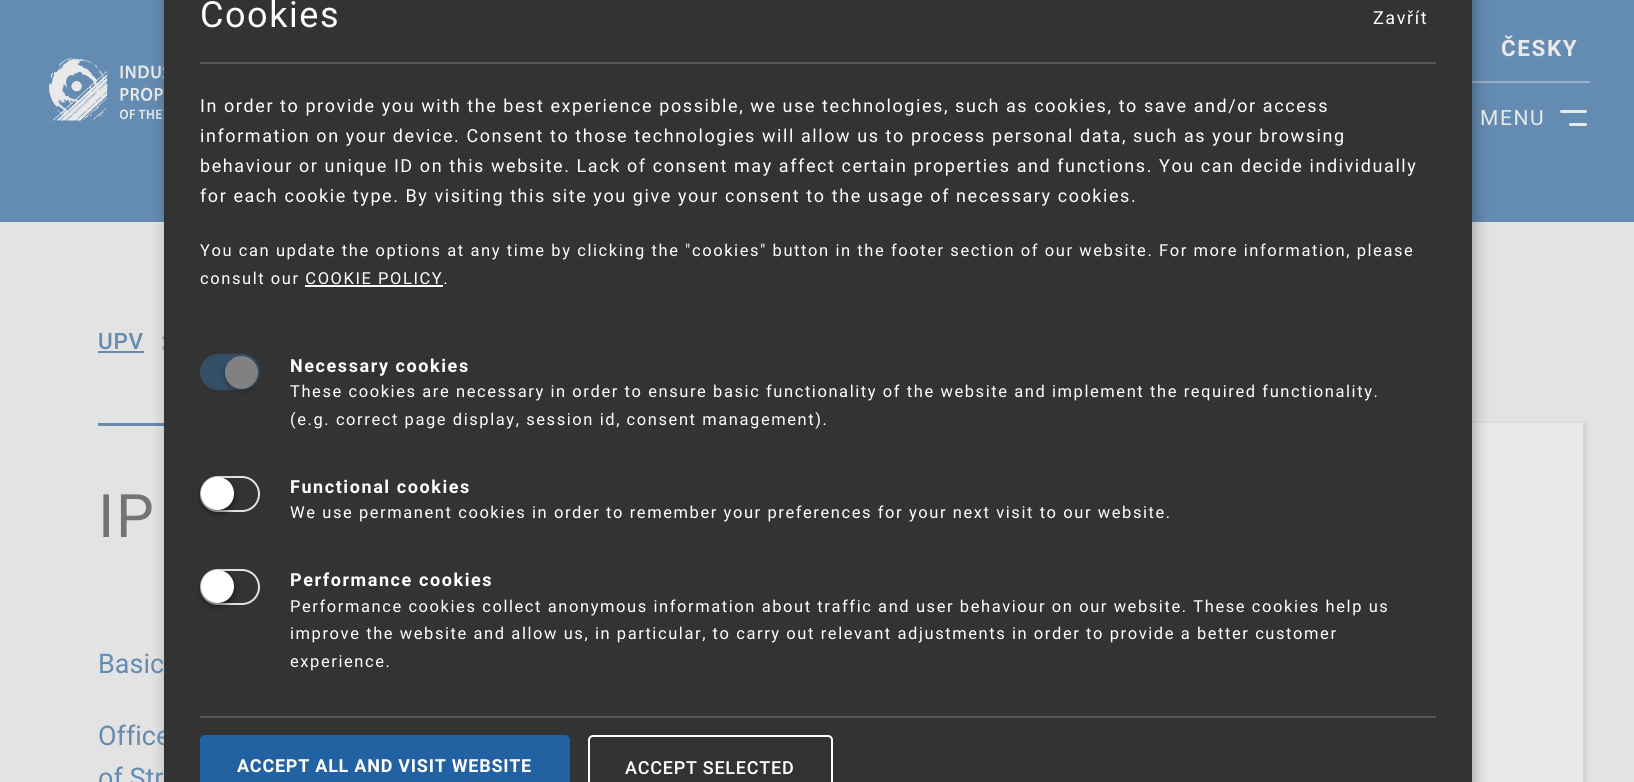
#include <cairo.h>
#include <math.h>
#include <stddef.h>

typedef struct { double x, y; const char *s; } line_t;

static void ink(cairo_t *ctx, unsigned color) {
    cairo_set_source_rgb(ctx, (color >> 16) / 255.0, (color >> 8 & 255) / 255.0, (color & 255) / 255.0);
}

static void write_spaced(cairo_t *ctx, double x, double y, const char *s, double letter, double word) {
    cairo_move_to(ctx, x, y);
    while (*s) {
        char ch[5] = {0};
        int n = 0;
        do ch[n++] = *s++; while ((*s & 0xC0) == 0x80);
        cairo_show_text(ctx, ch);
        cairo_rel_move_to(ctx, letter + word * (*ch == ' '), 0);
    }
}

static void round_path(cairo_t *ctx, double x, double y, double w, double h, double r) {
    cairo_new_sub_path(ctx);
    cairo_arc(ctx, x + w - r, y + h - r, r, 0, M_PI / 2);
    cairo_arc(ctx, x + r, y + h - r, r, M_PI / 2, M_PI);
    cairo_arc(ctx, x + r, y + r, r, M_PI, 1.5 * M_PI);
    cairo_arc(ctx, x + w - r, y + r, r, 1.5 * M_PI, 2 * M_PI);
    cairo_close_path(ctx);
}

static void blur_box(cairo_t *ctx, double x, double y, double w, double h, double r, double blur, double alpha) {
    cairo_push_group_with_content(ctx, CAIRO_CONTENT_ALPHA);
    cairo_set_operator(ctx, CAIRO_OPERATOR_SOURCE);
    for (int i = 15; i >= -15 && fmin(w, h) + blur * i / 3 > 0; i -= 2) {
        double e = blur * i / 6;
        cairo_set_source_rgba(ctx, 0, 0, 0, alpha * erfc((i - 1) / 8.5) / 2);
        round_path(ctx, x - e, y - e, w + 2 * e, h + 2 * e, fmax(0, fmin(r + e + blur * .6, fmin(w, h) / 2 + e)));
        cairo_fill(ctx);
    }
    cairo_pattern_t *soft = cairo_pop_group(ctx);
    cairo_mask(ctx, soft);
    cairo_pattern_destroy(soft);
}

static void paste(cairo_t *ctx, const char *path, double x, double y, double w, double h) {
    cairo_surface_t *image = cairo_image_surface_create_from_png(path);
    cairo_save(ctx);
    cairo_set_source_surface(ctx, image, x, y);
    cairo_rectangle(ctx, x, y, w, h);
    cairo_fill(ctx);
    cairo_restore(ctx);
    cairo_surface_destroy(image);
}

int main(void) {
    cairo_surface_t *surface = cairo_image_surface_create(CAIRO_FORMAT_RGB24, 1634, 782);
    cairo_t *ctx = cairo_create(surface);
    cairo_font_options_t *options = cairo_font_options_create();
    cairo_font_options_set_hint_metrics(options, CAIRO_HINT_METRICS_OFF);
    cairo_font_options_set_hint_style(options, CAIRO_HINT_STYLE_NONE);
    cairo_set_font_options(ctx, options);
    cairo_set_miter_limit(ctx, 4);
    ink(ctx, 0xE3E3E3);
    cairo_paint(ctx);
    ink(ctx, 0x648BB1);
    cairo_rectangle(ctx, 0, 0, 1634, 222);
    cairo_fill(ctx);
    paste(ctx, "media/1.png", 49, 57, 115, 64);
    ink(ctx, 0x99B1C7);
    cairo_rectangle(ctx, 1472, 81, 118, 2);
    cairo_fill(ctx);
    ink(ctx, 0x658BB1);
    cairo_rectangle(ctx, 98, 351, 46, 2);
    cairo_fill(ctx);
    paste(ctx, "media/2.png", 161, 335, 3, 16);
    cairo_rectangle(ctx, 98, 423, 66, 3);
    cairo_fill(ctx);
    ink(ctx, 0xC3C3C3);
    blur_box(ctx, 558, 423, 1029, 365, 0, 2, 0.5);
    ink(ctx, 0xE9E9E9);
    cairo_rectangle(ctx, 1472, 423, 111, 359);
    cairo_fill(ctx);
    ink(ctx, 0x0A0A0A);
    blur_box(ctx, 167, -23, 1308, 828, 0, 7.5, 0.3);
    cairo_select_font_face(ctx, "Roboto", CAIRO_FONT_SLANT_NORMAL, CAIRO_FONT_WEIGHT_NORMAL);
    cairo_set_font_size(ctx, 27);
    ink(ctx, 0x658BB1);
    cairo_move_to(ctx, 98, 745);
    cairo_show_text(ctx, "Office");
    ink(ctx, 0x333333);
    cairo_rectangle(ctx, 164, 0, 1308, 782);
    cairo_fill(ctx);
    ink(ctx, 0x555555);
    cairo_rectangle(ctx, 200, 62, 1236, 2);
    cairo_fill(ctx);
    cairo_set_font_size(ctx, 36);
    ink(ctx, 0xFFFFFF);
    write_spaced(ctx, 200, 27, "Cookies", 1.58, 0);
    cairo_set_font_size(ctx, 18);
    {
        static const line_t items[] = {
            {1373, 24, "Zavřít"},
            {200, 112, "In order to provide you with the best experience possible, we use technologies, such as cookies, to save and/or access"},
            {200, 142, "information on your device. Consent to those technologies will allow us to process personal data, such as your browsing"},
            {200, 172, "behaviour or unique ID on this website. Lack of consent may affect certain properties and functions. You can decide individually"},
            {200, 202, "for each cookie type. By visiting this site you give your consent to the usage of necessary cookies."},
        };
        for (size_t i = 0; i < sizeof items / sizeof *items; i++) {
            write_spaced(ctx, items[i].x, items[i].y, items[i].s, 1.58, 0);
        }
    }
    cairo_set_font_size(ctx, 16.5);
    write_spaced(ctx, 200, 256, "You can update the options at any time by clicking the \"cookies\" button in the footer section of our website. For more information, please", 1.58, 0);
    write_spaced(ctx, 200, 284, "consult our COOKIE POLICY.", 1.58, 0);
    cairo_rectangle(ctx, 305, 285, 138, 2);
    cairo_fill(ctx);
    ink(ctx, 0x334F67);
    round_path(ctx, 201, 355, 58, 34, 17);
    cairo_fill_preserve(ctx);
    cairo_stroke(ctx);
    ink(ctx, 0x202020);
    blur_box(ctx, 225, 359, 33, 33, 16.5, 3, 0.5);
    ink(ctx, 0x818181);
    cairo_arc(ctx, 241.5, 372.5, 16.5, 0, 2 * M_PI);
    cairo_fill(ctx);
    cairo_select_font_face(ctx, "Roboto", CAIRO_FONT_SLANT_NORMAL, CAIRO_FONT_WEIGHT_BOLD);
    cairo_set_font_size(ctx, 18);
    ink(ctx, 0xFFFFFF);
    write_spaced(ctx, 290, 372, "Necessary cookies", 1.58, 0);
    cairo_select_font_face(ctx, "Roboto", CAIRO_FONT_SLANT_NORMAL, CAIRO_FONT_WEIGHT_NORMAL);
    cairo_set_font_size(ctx, 16.5);
    write_spaced(ctx, 290, 397, "These cookies are necessary in order to ensure basic functionality of the website and implement the required functionality.", 1.58, 0);
    write_spaced(ctx, 290, 425, "(e.g. correct page display, session id, consent management).", 1.58, 0);
    round_path(ctx, 201, 477, 58, 34, 17);
    ink(ctx, 0xE1E1E1);
    cairo_stroke(ctx);
    ink(ctx, 0x000000);
    blur_box(ctx, 201, 480, 33, 33, 16.5, 3, 0.5);
    ink(ctx, 0xFFFFFF);
    cairo_arc(ctx, 217.5, 493.5, 16.5, 0, 2 * M_PI);
    cairo_fill(ctx);
    cairo_select_font_face(ctx, "Roboto", CAIRO_FONT_SLANT_NORMAL, CAIRO_FONT_WEIGHT_BOLD);
    cairo_set_font_size(ctx, 18);
    write_spaced(ctx, 290, 493, "Functional cookies", 1.58, 0);
    cairo_select_font_face(ctx, "Roboto", CAIRO_FONT_SLANT_NORMAL, CAIRO_FONT_WEIGHT_NORMAL);
    cairo_set_font_size(ctx, 16.5);
    write_spaced(ctx, 290, 518, "We use permanent cookies in order to remember your preferences for your next visit to our website.", 1.58, 0);
    round_path(ctx, 201, 570, 58, 34, 17);
    ink(ctx, 0xE1E1E1);
    cairo_stroke(ctx);
    ink(ctx, 0x000000);
    blur_box(ctx, 201, 573, 33, 33, 16.5, 3, 0.5);
    ink(ctx, 0xFFFFFF);
    cairo_arc(ctx, 217.5, 586.5, 16.5, 0, 2 * M_PI);
    cairo_fill(ctx);
    cairo_select_font_face(ctx, "Roboto", CAIRO_FONT_SLANT_NORMAL, CAIRO_FONT_WEIGHT_BOLD);
    cairo_set_font_size(ctx, 18);
    write_spaced(ctx, 290, 586, "Performance cookies", 1.58, 0);
    cairo_select_font_face(ctx, "Roboto", CAIRO_FONT_SLANT_NORMAL, CAIRO_FONT_WEIGHT_NORMAL);
    cairo_set_font_size(ctx, 16.5);
    {
        static const line_t items[] = {
            {290, 612, "Performance cookies collect anonymous information about traffic and user behaviour on our website. These cookies help us"},
            {290, 639, "improve the website and allow us, in particular, to carry out relevant adjustments in order to provide a better customer"},
            {290, 667, "experience."},
        };
        for (size_t i = 0; i < sizeof items / sizeof *items; i++) {
            write_spaced(ctx, items[i].x, items[i].y, items[i].s, 1.58, 0);
        }
    }
    ink(ctx, 0x555555);
    cairo_rectangle(ctx, 200, 716, 1236, 2);
    cairo_fill(ctx);
    ink(ctx, 0x2362A2);
    round_path(ctx, 201, 736, 368, 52, 4);
    cairo_fill_preserve(ctx);
    cairo_stroke(ctx);
    cairo_select_font_face(ctx, "Roboto", CAIRO_FONT_SLANT_NORMAL, CAIRO_FONT_WEIGHT_BOLD);
    cairo_set_font_size(ctx, 18);
    ink(ctx, 0xFFFFFF);
    write_spaced(ctx, 237, 772, "ACCEPT ALL AND VISIT WEBSITE", 0.75, 0);
    round_path(ctx, 589, 736, 243, 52, 4);
    cairo_stroke(ctx);
    cairo_select_font_face(ctx, "Roboto Medium", CAIRO_FONT_SLANT_NORMAL, CAIRO_FONT_WEIGHT_NORMAL);
    write_spaced(ctx, 625, 774, "ACCEPT SELECTED", 0.75, 0);
    cairo_select_font_face(ctx, "Roboto", CAIRO_FONT_SLANT_NORMAL, CAIRO_FONT_WEIGHT_BOLD);
    cairo_set_font_size(ctx, 22.5);
    ink(ctx, 0xE9E9E9);
    write_spaced(ctx, 1501, 56, "ČESKY", 1.58, 0);
    cairo_select_font_face(ctx, "Roboto", CAIRO_FONT_SLANT_NORMAL, CAIRO_FONT_WEIGHT_NORMAL);
    cairo_set_font_size(ctx, 21);
    write_spaced(ctx, 1480, 125, "MENU", 1.58, 0);
    round_path(ctx, 1560, 110, 27, 3, 1.5);
    cairo_fill(ctx);
    round_path(ctx, 1569, 123, 18, 3, 1.5);
    cairo_fill(ctx);
    cairo_select_font_face(ctx, "Roboto Medium", CAIRO_FONT_SLANT_NORMAL, CAIRO_FONT_WEIGHT_NORMAL);
    cairo_set_font_size(ctx, 22.5);
    ink(ctx, 0x658BB1);
    write_spaced(ctx, 98, 349, "UPV", 0.75, 0);
    cairo_select_font_face(ctx, "Roboto", CAIRO_FONT_SLANT_NORMAL, CAIRO_FONT_WEIGHT_NORMAL);
    cairo_set_font_size(ctx, 60);
    ink(ctx, 0x737373);
    write_spaced(ctx, 98, 537, "IP", 1.58, 0);
    cairo_set_font_size(ctx, 27);
    ink(ctx, 0x658BB1);
    cairo_move_to(ctx, 98, 673);
    cairo_show_text(ctx, "Basic");
    cairo_move_to(ctx, 98, 787);
    cairo_show_text(ctx, "of Str");
    cairo_surface_write_to_png(surface, "image.png");
    cairo_font_options_destroy(options);
    cairo_destroy(ctx);
    cairo_surface_destroy(surface);
    return 0;
}
